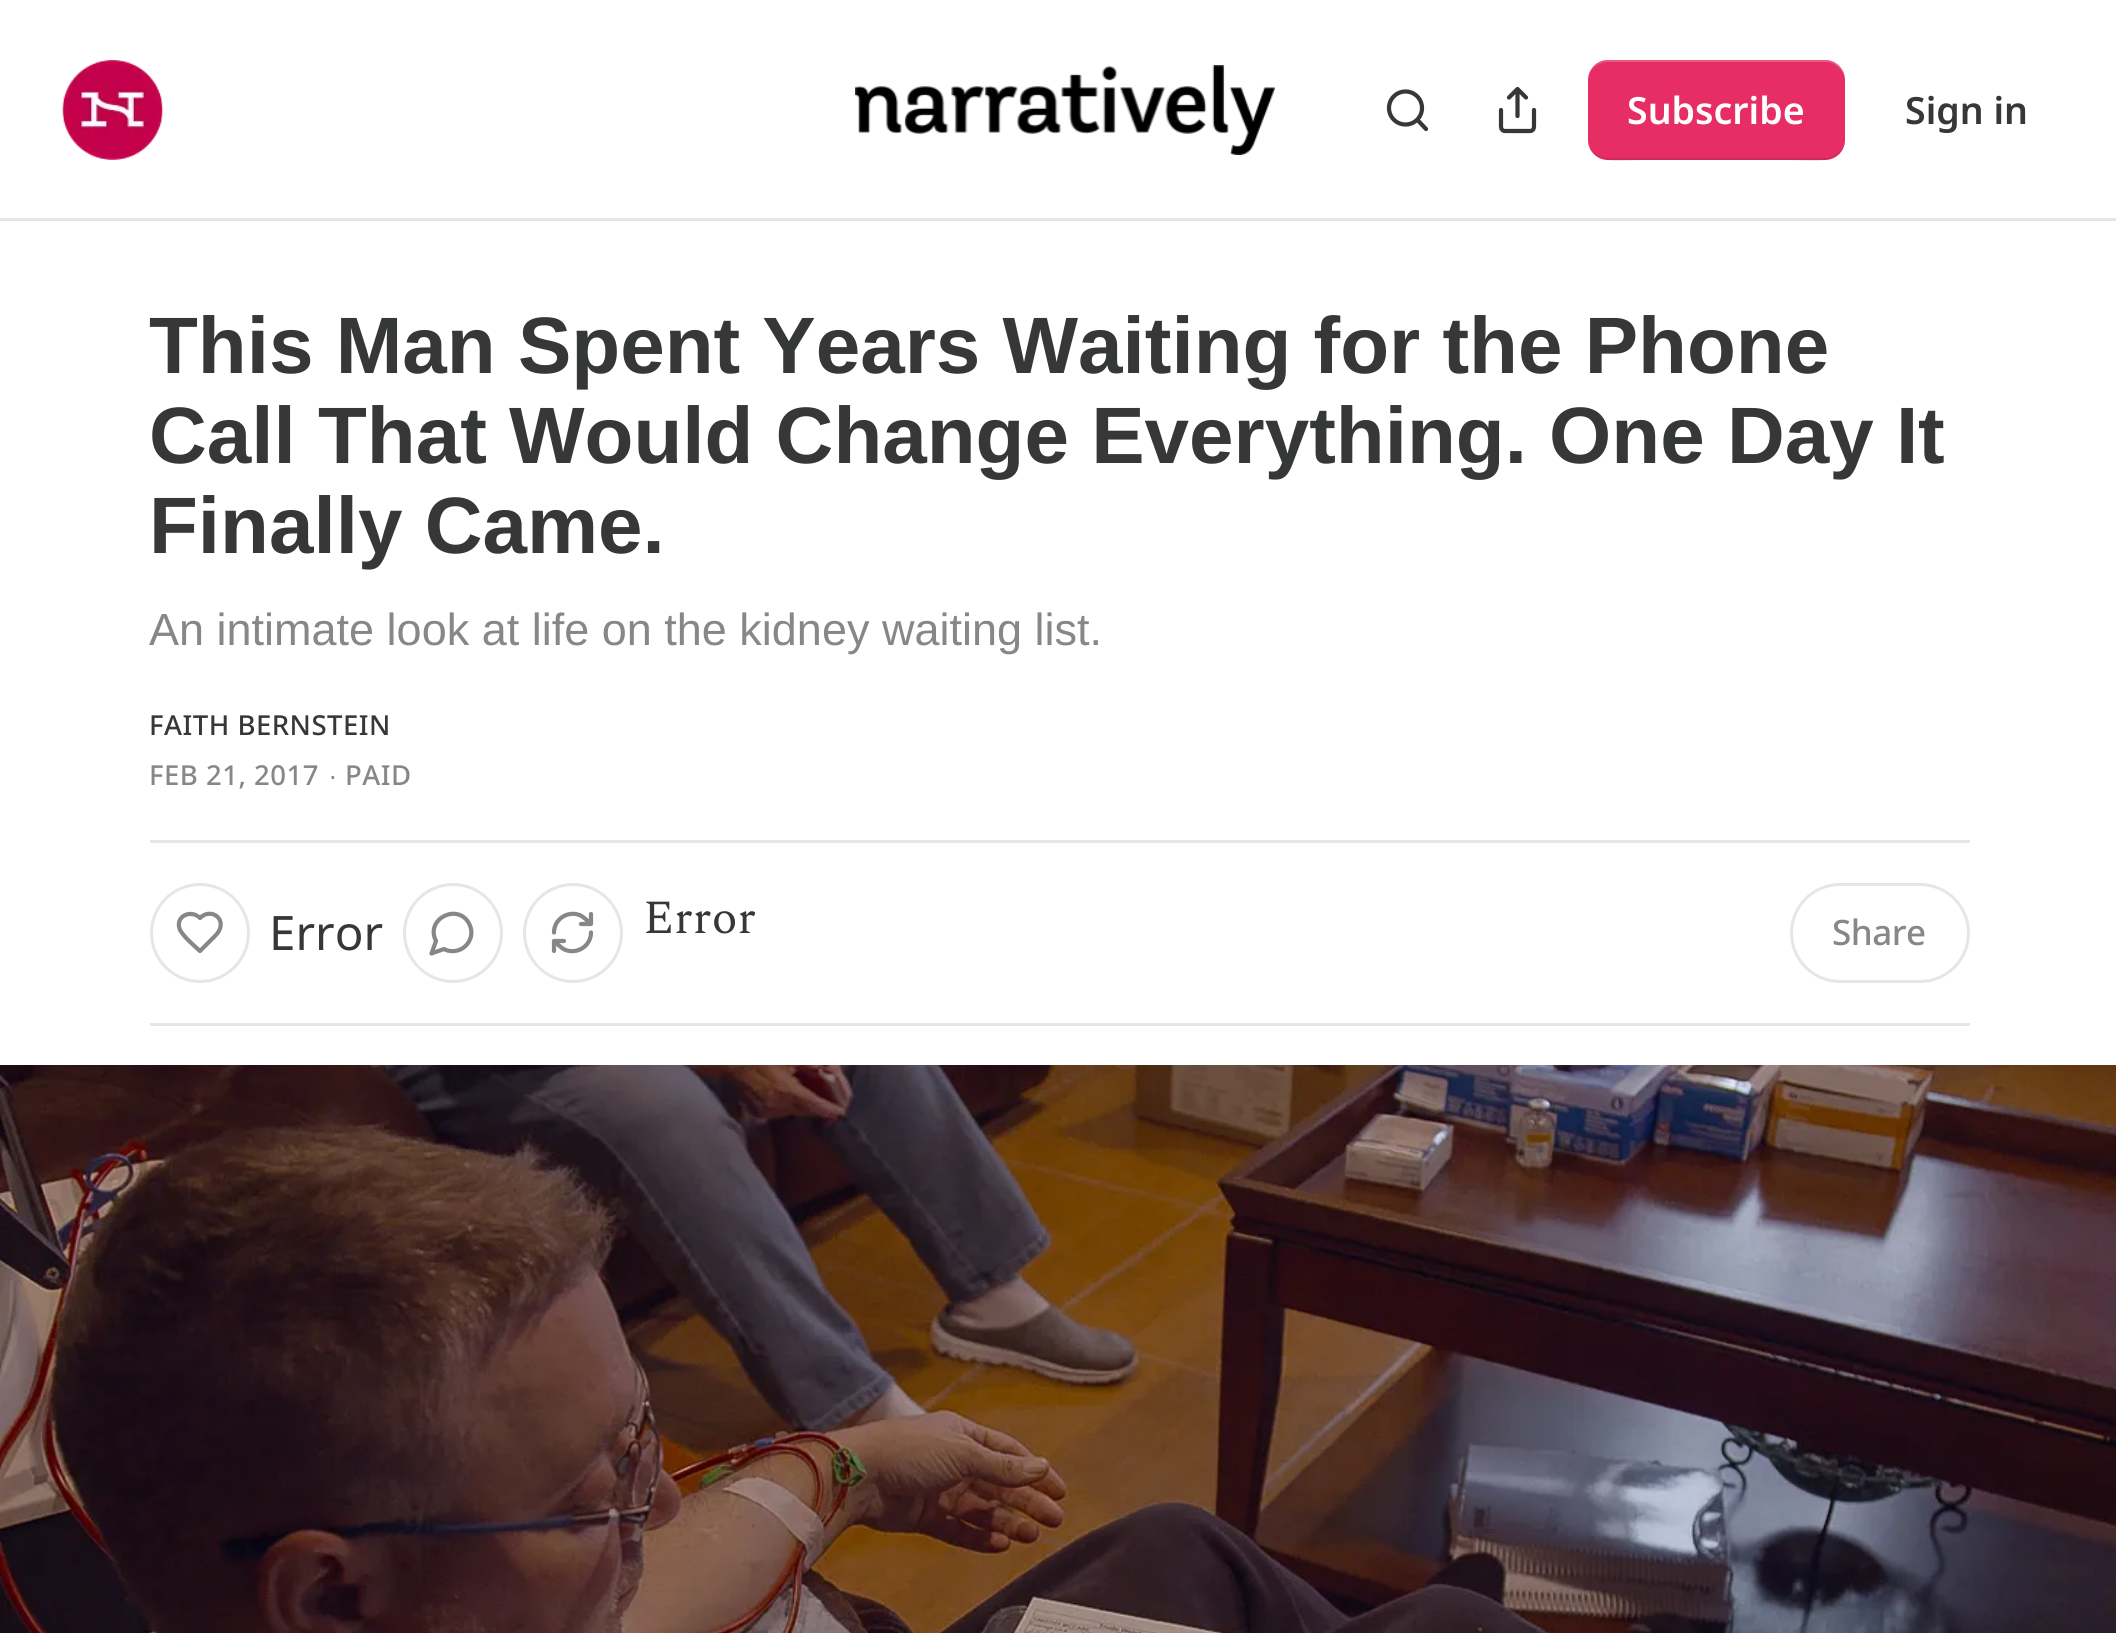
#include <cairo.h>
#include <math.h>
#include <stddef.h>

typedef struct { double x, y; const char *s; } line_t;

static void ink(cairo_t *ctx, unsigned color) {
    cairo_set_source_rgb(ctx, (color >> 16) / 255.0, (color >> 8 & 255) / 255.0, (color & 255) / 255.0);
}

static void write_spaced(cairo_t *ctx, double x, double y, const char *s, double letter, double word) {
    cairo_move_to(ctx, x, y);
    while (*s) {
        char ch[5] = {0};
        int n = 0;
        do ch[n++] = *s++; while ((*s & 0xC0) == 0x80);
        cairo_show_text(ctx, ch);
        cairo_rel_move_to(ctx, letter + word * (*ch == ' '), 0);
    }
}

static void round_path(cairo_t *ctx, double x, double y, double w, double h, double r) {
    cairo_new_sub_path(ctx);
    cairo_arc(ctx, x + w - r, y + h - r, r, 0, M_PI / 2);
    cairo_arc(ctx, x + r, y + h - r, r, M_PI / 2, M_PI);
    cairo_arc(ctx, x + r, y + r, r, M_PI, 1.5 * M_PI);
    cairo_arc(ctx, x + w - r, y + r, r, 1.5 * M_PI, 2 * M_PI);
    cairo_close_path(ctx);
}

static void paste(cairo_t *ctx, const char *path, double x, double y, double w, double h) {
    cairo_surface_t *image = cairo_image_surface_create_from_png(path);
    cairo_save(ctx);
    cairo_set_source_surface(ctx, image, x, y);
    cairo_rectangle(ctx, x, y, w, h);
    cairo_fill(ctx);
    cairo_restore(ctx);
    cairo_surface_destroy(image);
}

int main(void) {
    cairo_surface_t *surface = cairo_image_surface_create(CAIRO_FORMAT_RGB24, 2116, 1633);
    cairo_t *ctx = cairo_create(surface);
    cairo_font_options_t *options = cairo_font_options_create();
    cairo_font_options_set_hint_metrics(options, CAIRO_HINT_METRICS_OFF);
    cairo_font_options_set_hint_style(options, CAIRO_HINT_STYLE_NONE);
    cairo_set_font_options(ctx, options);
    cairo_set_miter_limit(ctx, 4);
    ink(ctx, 0xFFFFFF);
    cairo_paint(ctx);
    ink(ctx, 0xE6E6E6);
    cairo_rectangle(ctx, 0, 218, 2116, 3);
    cairo_fill(ctx);
    paste(ctx, "media/1.png", 62, 60, 101, 100);
    paste(ctx, "media/2.png", 855, 65, 420, 90);
    cairo_arc(ctx, 1405.5, 108, 16.5, 0, 2 * M_PI);
    ink(ctx, 0x363737);
    cairo_set_line_width(ctx, 4.2);
    cairo_stroke(ctx);
    cairo_new_path(ctx);
    cairo_move_to(ctx, 1426, 129);
    cairo_line_to(ctx, 1417.5, 120);
    cairo_set_line_cap(ctx, CAIRO_LINE_CAP_ROUND);
    cairo_set_line_join(ctx, CAIRO_LINE_JOIN_ROUND);
    cairo_stroke(ctx);
    cairo_new_path(ctx);
    cairo_move_to(ctx, 1501, 110);
    cairo_line_to(ctx, 1501, 126.5);
    cairo_curve_to(ctx, 1501, 129, 1502.5, 131, 1505, 131);
    cairo_line_to(ctx, 1530, 131);
    cairo_curve_to(ctx, 1532.5, 131, 1534, 129, 1534, 126.5);
    cairo_line_to(ctx, 1534, 110);
    cairo_move_to(ctx, 1526, 97.5);
    cairo_line_to(ctx, 1517.5, 89);
    cairo_line_to(ctx, 1509, 97.5);
    cairo_move_to(ctx, 1517.5, 89);
    cairo_line_to(ctx, 1517.5, 116);
    cairo_stroke(ctx);
    ink(ctx, 0xE62E65);
    round_path(ctx, 1588, 60, 257, 100, 20);
    cairo_fill(ctx);
    cairo_set_source_rgba(ctx, 0, 0, 0, 0.1);
    cairo_new_path(ctx);
    cairo_move_to(ctx, 1588, 138);
    cairo_curve_to(ctx, 1588, 168, 1625, 160, 1644, 160);
    cairo_line_to(ctx, 1789, 160);
    cairo_curve_to(ctx, 1808, 160, 1845, 168, 1845, 138);
    cairo_curve_to(ctx, 1845, 149, 1836, 158, 1825, 158);
    cairo_line_to(ctx, 1608, 158);
    cairo_curve_to(ctx, 1596, 158, 1588, 149, 1588, 138);
    cairo_close_path(ctx);
    cairo_fill(ctx);
    cairo_set_source_rgba(ctx, 1, 1, 1, 0.2);
    cairo_new_path(ctx);
    cairo_move_to(ctx, 1608, 62);
    cairo_line_to(ctx, 1825, 62);
    cairo_curve_to(ctx, 1836, 62, 1845, 71, 1845, 82);
    cairo_curve_to(ctx, 1845, 52, 1808, 60, 1789, 60);
    cairo_line_to(ctx, 1644, 60);
    cairo_curve_to(ctx, 1625, 60, 1588, 52, 1588, 82);
    cairo_curve_to(ctx, 1588, 71, 1596, 62, 1608, 62);
    cairo_close_path(ctx);
    cairo_fill(ctx);
    cairo_select_font_face(ctx, "Noto Sans SemiBold", CAIRO_FONT_SLANT_NORMAL, CAIRO_FONT_WEIGHT_NORMAL);
    cairo_set_font_size(ctx, 37.5);
    ink(ctx, 0xFFFFFF);
    cairo_move_to(ctx, 1627, 124);
    cairo_show_text(ctx, "Subscribe");
    ink(ctx, 0x363737);
    cairo_move_to(ctx, 1905, 124);
    cairo_show_text(ctx, "Sign in");
    cairo_select_font_face(ctx, "Liberation Sans", CAIRO_FONT_SLANT_NORMAL, CAIRO_FONT_WEIGHT_BOLD);
    cairo_set_font_size(ctx, 80);
    {
        static const line_t items[] = {
            {149, 373, "This Man Spent Years Waiting for the Phone"},
            {149, 463, "Call That Would Change Everything. One Day It"},
            {149, 553, "Finally Came."},
        };
        for (size_t i = 0; i < sizeof items / sizeof *items; i++) {
            cairo_move_to(ctx, items[i].x, items[i].y);
            cairo_show_text(ctx, items[i].s);
        }
    }
    cairo_select_font_face(ctx, "Liberation Sans", CAIRO_FONT_SLANT_NORMAL, CAIRO_FONT_WEIGHT_NORMAL);
    cairo_set_font_size(ctx, 45);
    ink(ctx, 0x868787);
    cairo_move_to(ctx, 149, 645);
    cairo_show_text(ctx, "An intimate look at life on the kidney waiting list.");
    cairo_select_font_face(ctx, "Noto Sans Medium", CAIRO_FONT_SLANT_NORMAL, CAIRO_FONT_WEIGHT_NORMAL);
    cairo_set_font_size(ctx, 27.5);
    ink(ctx, 0x363737);
    write_spaced(ctx, 149, 735, "FAITH BERNSTEIN", 0.5, 0);
    ink(ctx, 0x868787);
    write_spaced(ctx, 149, 785, "FEB 21, 2017", 0.5, 0);
    cairo_select_font_face(ctx, "Liberation Sans", CAIRO_FONT_SLANT_NORMAL, CAIRO_FONT_WEIGHT_NORMAL);
    write_spaced(ctx, 329, 785, "∙", 0.5, 0);
    cairo_select_font_face(ctx, "Noto Sans Medium", CAIRO_FONT_SLANT_NORMAL, CAIRO_FONT_WEIGHT_NORMAL);
    write_spaced(ctx, 345, 785, "PAID", 0.5, 0);
    ink(ctx, 0xE6E6E6);
    cairo_rectangle(ctx, 150, 840, 1820, 3);
    cairo_fill(ctx);
    cairo_rectangle(ctx, 150, 1023, 1820, 3);
    cairo_fill(ctx);
    cairo_arc(ctx, 200, 933, 48.5, 0, 2 * M_PI);
    cairo_set_line_width(ctx, 3);
    cairo_set_line_cap(ctx, CAIRO_LINE_CAP_BUTT);
    cairo_set_line_join(ctx, CAIRO_LINE_JOIN_MITER);
    cairo_stroke(ctx);
    cairo_new_path(ctx);
    cairo_move_to(ctx, 214.5, 936.5);
    cairo_curve_to(ctx, 230.5, 921.5, 212, 906, 200, 918);
    cairo_curve_to(ctx, 191, 909, 175.5, 916, 179.5, 928.5);
    cairo_curve_to(ctx, 181.5, 935, 195, 946.5, 200, 951);
    cairo_close_path(ctx);
    ink(ctx, 0x868787);
    cairo_set_line_width(ctx, 4.2);
    cairo_set_line_cap(ctx, CAIRO_LINE_CAP_ROUND);
    cairo_set_line_join(ctx, CAIRO_LINE_JOIN_ROUND);
    cairo_stroke(ctx);
    cairo_select_font_face(ctx, "Noto Sans", CAIRO_FONT_SLANT_NORMAL, CAIRO_FONT_WEIGHT_NORMAL);
    cairo_set_font_size(ctx, 47.5);
    ink(ctx, 0x363737);
    cairo_move_to(ctx, 269, 950);
    cairo_show_text(ctx, "Error");
    cairo_new_path(ctx);
    cairo_arc(ctx, 453, 933, 48.5, 0, 2 * M_PI);
    ink(ctx, 0xE6E6E6);
    cairo_set_line_width(ctx, 3);
    cairo_set_line_cap(ctx, CAIRO_LINE_CAP_BUTT);
    cairo_set_line_join(ctx, CAIRO_LINE_JOIN_MITER);
    cairo_stroke(ctx);
    cairo_new_path(ctx);
    cairo_move_to(ctx, 444, 949);
    cairo_curve_to(ctx, 453, 954, 465, 950, 469.5, 940.5);
    cairo_curve_to(ctx, 472, 935.5, 472, 929.5, 469.5, 924.5);
    cairo_curve_to(ctx, 459, 902, 424.5, 918.5, 436, 941);
    cairo_line_to(ctx, 431.5, 953.5);
    cairo_close_path(ctx);
    ink(ctx, 0x868787);
    cairo_set_line_width(ctx, 4.2);
    cairo_set_line_cap(ctx, CAIRO_LINE_CAP_ROUND);
    cairo_set_line_join(ctx, CAIRO_LINE_JOIN_ROUND);
    cairo_stroke(ctx);
    cairo_arc(ctx, 573, 933, 48.5, 0, 2 * M_PI);
    ink(ctx, 0xE6E6E6);
    cairo_set_line_width(ctx, 3);
    cairo_set_line_cap(ctx, CAIRO_LINE_CAP_BUTT);
    cairo_set_line_join(ctx, CAIRO_LINE_JOIN_MITER);
    cairo_stroke(ctx);
    cairo_new_path(ctx);
    cairo_move_to(ctx, 591, 914);
    cairo_line_to(ctx, 591, 924);
    cairo_move_to(ctx, 591, 924);
    cairo_line_to(ctx, 581, 924);
    cairo_move_to(ctx, 591, 924);
    cairo_curve_to(ctx, 587.5, 921, 584, 917, 579.5, 915);
    cairo_curve_to(ctx, 567, 910.5, 554, 919.5, 554, 932.5);
    cairo_move_to(ctx, 554, 951);
    cairo_line_to(ctx, 554, 941);
    cairo_move_to(ctx, 554, 941);
    cairo_line_to(ctx, 564, 941);
    cairo_move_to(ctx, 554, 941);
    cairo_curve_to(ctx, 557.5, 944, 561, 948, 565.5, 950);
    cairo_curve_to(ctx, 578, 954.5, 591, 945.5, 591, 932.5);
    ink(ctx, 0x868787);
    cairo_set_line_width(ctx, 4.2);
    cairo_set_line_cap(ctx, CAIRO_LINE_CAP_ROUND);
    cairo_set_line_join(ctx, CAIRO_LINE_JOIN_ROUND);
    cairo_stroke(ctx);
    cairo_select_font_face(ctx, "Spectral", CAIRO_FONT_SLANT_NORMAL, CAIRO_FONT_WEIGHT_NORMAL);
    ink(ctx, 0x363737);
    cairo_move_to(ctx, 643, 933);
    cairo_show_text(ctx, "Error");
    round_path(ctx, 1791.5, 884.5, 177, 97, 48.5);
    ink(ctx, 0xE6E6E6);
    cairo_set_line_width(ctx, 3);
    cairo_set_line_cap(ctx, CAIRO_LINE_CAP_BUTT);
    cairo_set_line_join(ctx, CAIRO_LINE_JOIN_MITER);
    cairo_stroke(ctx);
    cairo_select_font_face(ctx, "Noto Sans Medium", CAIRO_FONT_SLANT_NORMAL, CAIRO_FONT_WEIGHT_NORMAL);
    cairo_set_font_size(ctx, 35);
    ink(ctx, 0x868787);
    write_spaced(ctx, 1832, 945, "Share", -0.5, 0);
    paste(ctx, "media/3.png", 0, 1065, 2116, 568);
    cairo_surface_write_to_png(surface, "image.png");
    cairo_font_options_destroy(options);
    cairo_destroy(ctx);
    cairo_surface_destroy(surface);
    return 0;
}
